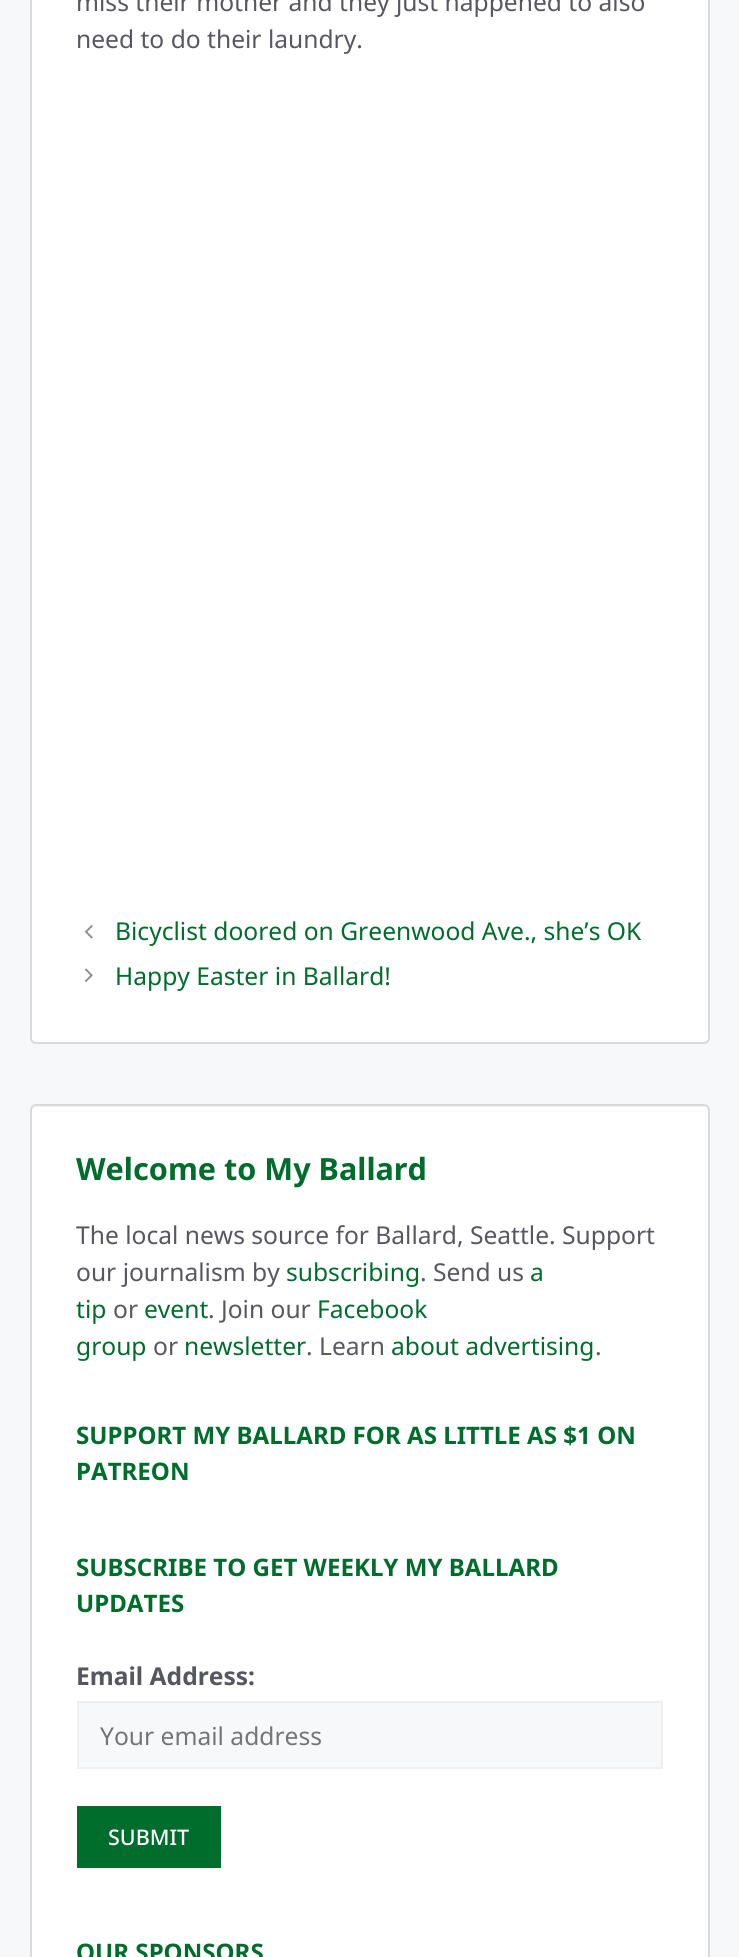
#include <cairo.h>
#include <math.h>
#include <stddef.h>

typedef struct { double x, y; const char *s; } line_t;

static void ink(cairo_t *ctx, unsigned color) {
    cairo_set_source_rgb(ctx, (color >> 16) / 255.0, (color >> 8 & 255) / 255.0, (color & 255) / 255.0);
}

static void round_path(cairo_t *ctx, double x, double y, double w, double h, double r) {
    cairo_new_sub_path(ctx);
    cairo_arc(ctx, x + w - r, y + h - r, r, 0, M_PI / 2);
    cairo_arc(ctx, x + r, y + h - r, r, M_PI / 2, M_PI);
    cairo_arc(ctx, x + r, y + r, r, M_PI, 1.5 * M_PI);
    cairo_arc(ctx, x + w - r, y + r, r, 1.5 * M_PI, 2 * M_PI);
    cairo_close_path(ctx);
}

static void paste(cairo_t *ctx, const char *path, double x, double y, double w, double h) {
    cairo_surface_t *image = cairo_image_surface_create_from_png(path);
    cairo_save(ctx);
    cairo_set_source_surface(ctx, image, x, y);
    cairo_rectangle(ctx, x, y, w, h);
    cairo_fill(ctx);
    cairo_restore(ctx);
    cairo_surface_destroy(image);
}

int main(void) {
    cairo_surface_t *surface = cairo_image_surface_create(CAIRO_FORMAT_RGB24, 739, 1957);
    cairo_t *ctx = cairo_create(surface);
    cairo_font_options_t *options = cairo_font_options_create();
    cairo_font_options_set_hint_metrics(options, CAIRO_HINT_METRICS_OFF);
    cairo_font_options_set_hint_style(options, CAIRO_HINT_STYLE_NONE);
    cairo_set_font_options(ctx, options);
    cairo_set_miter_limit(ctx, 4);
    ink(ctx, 0xF7F8F9);
    cairo_paint(ctx);
    ink(ctx, 0xFFFFFF);
    round_path(ctx, 31, -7, 678, 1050, 5);
    cairo_fill_preserve(ctx);
    ink(ctx, 0xDADADA);
    cairo_stroke(ctx);
    cairo_select_font_face(ctx, "Noto Sans", CAIRO_FONT_SLANT_NORMAL, CAIRO_FONT_WEIGHT_NORMAL);
    cairo_set_font_size(ctx, 24.6);
    ink(ctx, 0x575760);
    cairo_move_to(ctx, 76, 11);
    cairo_show_text(ctx, "miss their mother and they just happened to also");
    cairo_move_to(ctx, 76, 48);
    cairo_show_text(ctx, "need to do their laundry.");
    paste(ctx, "media/1.png", 84, 925, 9, 14);
    ink(ctx, 0x006D2C);
    cairo_move_to(ctx, 115, 940);
    cairo_show_text(ctx, "Bicyclist doored on Greenwood Ave., she’s OK");
    paste(ctx, "media/2.png", 84, 968, 9, 14);
    cairo_move_to(ctx, 115, 985);
    cairo_show_text(ctx, "Happy Easter in Ballard!");
    ink(ctx, 0xFFFFFF);
    round_path(ctx, 30, 1104, 680, 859, 6);
    cairo_fill(ctx);
    ink(ctx, 0xF2F2F2);
    cairo_new_path(ctx);
    cairo_move_to(ctx, 36, 1107);
    cairo_line_to(ctx, 704, 1107);
    cairo_curve_to(ctx, 706, 1107, 708, 1109, 708, 1112);
    cairo_line_to(ctx, 708, 1111);
    cairo_curve_to(ctx, 708, 1108, 706, 1106, 703, 1106);
    cairo_line_to(ctx, 37, 1106);
    cairo_curve_to(ctx, 34, 1106, 32, 1108, 32, 1111);
    cairo_line_to(ctx, 32, 1112);
    cairo_curve_to(ctx, 32, 1109, 34, 1107, 36, 1107);
    cairo_close_path(ctx);
    cairo_fill(ctx);
    round_path(ctx, 31, 1105, 678, 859, 5);
    ink(ctx, 0xDADADA);
    cairo_stroke(ctx);
    cairo_select_font_face(ctx, "Noto Sans", CAIRO_FONT_SLANT_NORMAL, CAIRO_FONT_WEIGHT_BOLD);
    cairo_set_font_size(ctx, 30.6);
    ink(ctx, 0x006D2C);
    cairo_move_to(ctx, 76, 1180);
    cairo_show_text(ctx, "Welcome to My Ballard");
    cairo_select_font_face(ctx, "Noto Sans", CAIRO_FONT_SLANT_NORMAL, CAIRO_FONT_WEIGHT_NORMAL);
    cairo_set_font_size(ctx, 24.6);
    ink(ctx, 0x575760);
    cairo_move_to(ctx, 76, 1244);
    cairo_show_text(ctx, "The local news source for Ballard, Seattle. Support");
    cairo_move_to(ctx, 76, 1281);
    cairo_show_text(ctx, "our journalism by");
    ink(ctx, 0x006D2C);
    cairo_move_to(ctx, 286, 1281);
    cairo_show_text(ctx, "subscribing");
    ink(ctx, 0x575760);
    cairo_move_to(ctx, 420, 1281);
    cairo_show_text(ctx, ". Send us");
    ink(ctx, 0x006D2C);
    cairo_move_to(ctx, 530, 1281);
    cairo_show_text(ctx, "a");
    cairo_move_to(ctx, 76, 1318);
    cairo_show_text(ctx, "tip");
    ink(ctx, 0x575760);
    cairo_move_to(ctx, 113, 1318);
    cairo_show_text(ctx, "or");
    ink(ctx, 0x006D2C);
    cairo_move_to(ctx, 144, 1318);
    cairo_show_text(ctx, "event");
    ink(ctx, 0x575760);
    cairo_move_to(ctx, 208, 1318);
    cairo_show_text(ctx, ". Join our");
    ink(ctx, 0x006D2C);
    cairo_move_to(ctx, 317, 1318);
    cairo_show_text(ctx, "Facebook");
    cairo_move_to(ctx, 76, 1355);
    cairo_show_text(ctx, "group");
    ink(ctx, 0x575760);
    cairo_move_to(ctx, 153, 1355);
    cairo_show_text(ctx, "or");
    ink(ctx, 0x006D2C);
    cairo_move_to(ctx, 184, 1355);
    cairo_show_text(ctx, "newsletter");
    ink(ctx, 0x575760);
    cairo_move_to(ctx, 306, 1355);
    cairo_show_text(ctx, ". Learn");
    ink(ctx, 0x006D2C);
    cairo_move_to(ctx, 391, 1355);
    cairo_show_text(ctx, "about advertising");
    ink(ctx, 0x575760);
    cairo_move_to(ctx, 595, 1355);
    cairo_show_text(ctx, ".");
    cairo_select_font_face(ctx, "Noto Sans", CAIRO_FONT_SLANT_NORMAL, CAIRO_FONT_WEIGHT_BOLD);
    cairo_set_font_size(ctx, 24.1);
    ink(ctx, 0x006D2C);
    {
        static const line_t items[] = {
            {76, 1444, "SUPPORT MY BALLARD FOR AS LITTLE AS $1 ON"},
            {76, 1480, "PATREON"},
            {76, 1576, "SUBSCRIBE TO GET WEEKLY MY BALLARD"},
            {76, 1612, "UPDATES"},
        };
        for (size_t i = 0; i < sizeof items / sizeof *items; i++) {
            cairo_move_to(ctx, items[i].x, items[i].y);
            cairo_show_text(ctx, items[i].s);
        }
    }
    cairo_set_font_size(ctx, 24.6);
    ink(ctx, 0x575760);
    cairo_move_to(ctx, 76, 1685);
    cairo_show_text(ctx, "Email Address:");
    ink(ctx, 0xF7F8F9);
    cairo_rectangle(ctx, 78, 1702, 584, 66);
    cairo_fill_preserve(ctx);
    ink(ctx, 0xF0F0F0);
    cairo_stroke(ctx);
    cairo_select_font_face(ctx, "Noto Sans", CAIRO_FONT_SLANT_NORMAL, CAIRO_FONT_WEIGHT_NORMAL);
    ink(ctx, 0x757575);
    cairo_move_to(ctx, 100, 1745);
    cairo_show_text(ctx, "Your email address");
    ink(ctx, 0x006D2C);
    cairo_rectangle(ctx, 77, 1806, 144, 62);
    cairo_fill(ctx);
    cairo_select_font_face(ctx, "Noto Sans Medium", CAIRO_FONT_SLANT_NORMAL, CAIRO_FONT_WEIGHT_NORMAL);
    cairo_set_font_size(ctx, 21.5);
    ink(ctx, 0xFFFFFF);
    cairo_move_to(ctx, 108, 1845);
    cairo_show_text(ctx, "SUBMIT");
    cairo_select_font_face(ctx, "Noto Sans", CAIRO_FONT_SLANT_NORMAL, CAIRO_FONT_WEIGHT_BOLD);
    cairo_set_font_size(ctx, 24.1);
    ink(ctx, 0x006D2C);
    cairo_move_to(ctx, 76, 1961);
    cairo_show_text(ctx, "OUR SPONSORS");
    cairo_surface_write_to_png(surface, "image.png");
    cairo_font_options_destroy(options);
    cairo_destroy(ctx);
    cairo_surface_destroy(surface);
    return 0;
}
